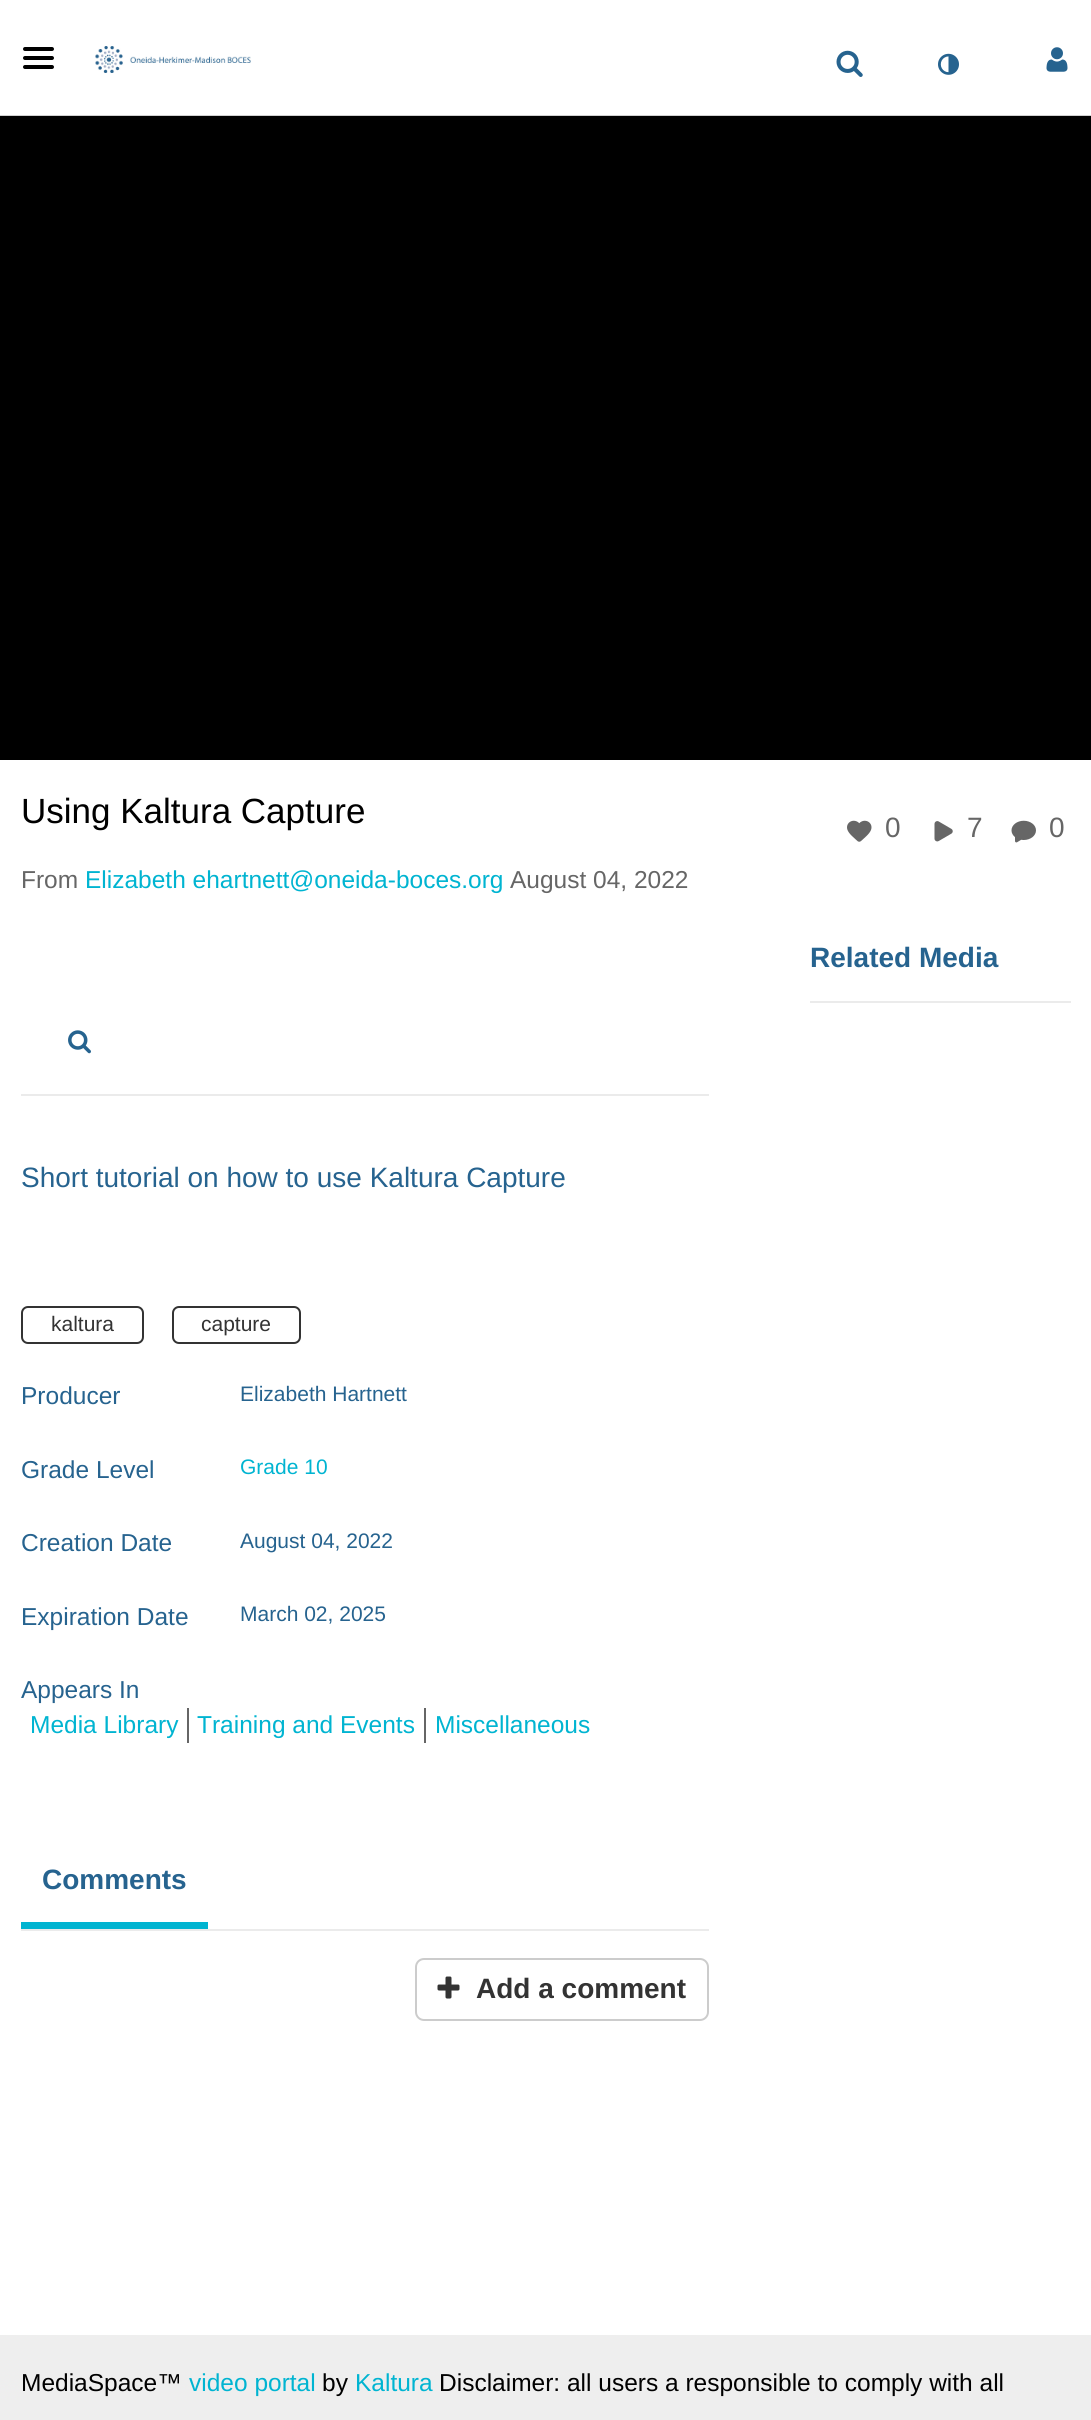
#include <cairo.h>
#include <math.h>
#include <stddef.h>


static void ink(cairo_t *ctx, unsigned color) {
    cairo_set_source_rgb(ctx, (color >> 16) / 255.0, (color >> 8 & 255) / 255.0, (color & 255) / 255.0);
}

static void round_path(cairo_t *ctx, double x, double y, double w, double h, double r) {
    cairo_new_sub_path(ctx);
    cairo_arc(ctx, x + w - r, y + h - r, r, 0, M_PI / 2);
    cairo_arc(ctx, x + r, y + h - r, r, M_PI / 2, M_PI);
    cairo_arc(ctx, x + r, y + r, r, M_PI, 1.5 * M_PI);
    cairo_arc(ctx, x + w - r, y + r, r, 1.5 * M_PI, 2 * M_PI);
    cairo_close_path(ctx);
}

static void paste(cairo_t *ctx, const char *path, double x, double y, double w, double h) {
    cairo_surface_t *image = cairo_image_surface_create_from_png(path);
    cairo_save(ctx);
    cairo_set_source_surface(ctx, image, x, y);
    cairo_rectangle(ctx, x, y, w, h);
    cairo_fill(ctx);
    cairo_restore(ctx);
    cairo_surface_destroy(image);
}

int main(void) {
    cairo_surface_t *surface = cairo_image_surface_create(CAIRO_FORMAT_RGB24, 1091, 2420);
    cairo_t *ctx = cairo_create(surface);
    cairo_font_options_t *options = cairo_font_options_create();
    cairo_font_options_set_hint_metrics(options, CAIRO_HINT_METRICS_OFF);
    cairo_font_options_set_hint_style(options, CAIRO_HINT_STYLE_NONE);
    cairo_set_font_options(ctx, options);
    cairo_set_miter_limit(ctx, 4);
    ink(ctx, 0xFFFFFF);
    cairo_paint(ctx);
    ink(ctx, 0x000000);
    round_path(ctx, 23, 47, 31, 4, 2);
    cairo_fill(ctx);
    round_path(ctx, 23, 56, 31, 4, 2);
    cairo_fill(ctx);
    round_path(ctx, 23, 65, 31, 4, 2);
    cairo_fill(ctx);
    paste(ctx, "media/1.png", 95, 46, 156, 27);
    paste(ctx, "media/2.png", 836, 50, 27, 27);
    paste(ctx, "media/3.png", 938, 53, 21, 22);
    paste(ctx, "media/4.png", 1046, 47, 22, 25);
    cairo_rectangle(ctx, 0, 116, 1091, 644);
    cairo_fill(ctx);
    ink(ctx, 0xD1D1D1);
    cairo_rectangle(ctx, 0, 115, 1091, 1);
    cairo_fill(ctx);
    cairo_select_font_face(ctx, "Liberation Sans", CAIRO_FONT_SLANT_NORMAL, CAIRO_FONT_WEIGHT_NORMAL);
    cairo_set_font_size(ctx, 35);
    ink(ctx, 0x000000);
    cairo_move_to(ctx, 21, 823);
    cairo_show_text(ctx, "Using Kaltura Capture");
    cairo_set_font_size(ctx, 24.5);
    ink(ctx, 0x666666);
    cairo_move_to(ctx, 21, 888);
    cairo_show_text(ctx, "From");
    ink(ctx, 0x00B4D1);
    cairo_move_to(ctx, 85, 888);
    cairo_show_text(ctx, "Elizabeth ehartnett@oneida-boces.org");
    ink(ctx, 0x666666);
    cairo_move_to(ctx, 510, 888);
    cairo_show_text(ctx, "August 04, 2022");
    paste(ctx, "media/5.png", 847, 820, 25, 22);
    cairo_set_font_size(ctx, 28);
    cairo_move_to(ctx, 885, 837);
    cairo_show_text(ctx, "0");
    paste(ctx, "media/6.png", 934, 821, 19, 21);
    cairo_move_to(ctx, 967, 837);
    cairo_show_text(ctx, "7");
    paste(ctx, "media/7.png", 1011, 820, 25, 23);
    cairo_move_to(ctx, 1049, 837);
    cairo_show_text(ctx, "0");
    ink(ctx, 0xEBEBEB);
    cairo_rectangle(ctx, 810, 1001, 261, 2);
    cairo_fill(ctx);
    cairo_select_font_face(ctx, "Liberation Sans", CAIRO_FONT_SLANT_NORMAL, CAIRO_FONT_WEIGHT_BOLD);
    ink(ctx, 0x26638F);
    cairo_move_to(ctx, 810, 967);
    cairo_show_text(ctx, "Related Media");
    ink(ctx, 0xEBEBEB);
    cairo_rectangle(ctx, 21, 1094, 688, 2);
    cairo_fill(ctx);
    paste(ctx, "media/8.png", 68, 1030, 23, 24);
    cairo_select_font_face(ctx, "Liberation Sans", CAIRO_FONT_SLANT_NORMAL, CAIRO_FONT_WEIGHT_NORMAL);
    ink(ctx, 0x26638F);
    cairo_move_to(ctx, 21, 1187);
    cairo_show_text(ctx, "Short tutorial on how to use Kaltura Capture");
    round_path(ctx, 22, 1307, 121, 36, 6);
    ink(ctx, 0x333333);
    cairo_stroke(ctx);
    cairo_set_font_size(ctx, 21);
    cairo_move_to(ctx, 51, 1331);
    cairo_show_text(ctx, "kaltura");
    round_path(ctx, 173, 1307, 127, 36, 6);
    cairo_stroke(ctx);
    cairo_move_to(ctx, 201, 1331);
    cairo_show_text(ctx, "capture");
    cairo_set_font_size(ctx, 24.5);
    ink(ctx, 0x26638F);
    cairo_move_to(ctx, 21, 1404);
    cairo_show_text(ctx, "Producer");
    cairo_set_font_size(ctx, 21);
    cairo_move_to(ctx, 240, 1401);
    cairo_show_text(ctx, "Elizabeth Hartnett");
    cairo_set_font_size(ctx, 24.5);
    cairo_move_to(ctx, 21, 1478);
    cairo_show_text(ctx, "Grade Level");
    cairo_set_font_size(ctx, 21);
    ink(ctx, 0x00B4D1);
    cairo_move_to(ctx, 240, 1474);
    cairo_show_text(ctx, "Grade 10");
    cairo_set_font_size(ctx, 24.5);
    ink(ctx, 0x26638F);
    cairo_move_to(ctx, 21, 1551);
    cairo_show_text(ctx, "Creation Date");
    cairo_set_font_size(ctx, 21);
    cairo_move_to(ctx, 240, 1548);
    cairo_show_text(ctx, "August 04, 2022");
    cairo_set_font_size(ctx, 24.5);
    cairo_move_to(ctx, 21, 1625);
    cairo_show_text(ctx, "Expiration Date");
    cairo_set_font_size(ctx, 21);
    cairo_move_to(ctx, 240, 1621);
    cairo_show_text(ctx, "March 02, 2025");
    cairo_set_font_size(ctx, 24.5);
    cairo_move_to(ctx, 21, 1698);
    cairo_show_text(ctx, "Appears In");
    ink(ctx, 0x666666);
    cairo_rectangle(ctx, 187, 1708, 2, 35);
    cairo_fill(ctx);
    ink(ctx, 0x00B4D1);
    cairo_move_to(ctx, 30, 1733);
    cairo_show_text(ctx, "Media Library");
    ink(ctx, 0x666666);
    cairo_rectangle(ctx, 424, 1708, 2, 35);
    cairo_fill(ctx);
    ink(ctx, 0x00B4D1);
    cairo_move_to(ctx, 197, 1733);
    cairo_show_text(ctx, "Training and Events");
    cairo_move_to(ctx, 435, 1733);
    cairo_show_text(ctx, "Miscellaneous");
    ink(ctx, 0xEBEBEB);
    cairo_rectangle(ctx, 21, 1929, 688, 2);
    cairo_fill(ctx);
    ink(ctx, 0x00B4D1);
    cairo_rectangle(ctx, 21, 1922, 187, 7);
    cairo_fill(ctx);
    cairo_select_font_face(ctx, "Liberation Sans", CAIRO_FONT_SLANT_NORMAL, CAIRO_FONT_WEIGHT_BOLD);
    cairo_set_font_size(ctx, 28);
    ink(ctx, 0x26638F);
    cairo_move_to(ctx, 42, 1889);
    cairo_show_text(ctx, "Comments");
    round_path(ctx, 416, 1959, 292, 61, 8);
    ink(ctx, 0xCCCCCC);
    cairo_stroke(ctx);
    paste(ctx, "media/9.png", 437, 1976, 23, 23);
    ink(ctx, 0x333333);
    cairo_move_to(ctx, 476, 1998);
    cairo_show_text(ctx, "Add a comment");
    ink(ctx, 0xEEEEEE);
    cairo_rectangle(ctx, 0, 2335, 1091, 85);
    cairo_fill(ctx);
    cairo_select_font_face(ctx, "Liberation Sans", CAIRO_FONT_SLANT_NORMAL, CAIRO_FONT_WEIGHT_NORMAL);
    cairo_set_font_size(ctx, 24.5);
    ink(ctx, 0x000000);
    cairo_move_to(ctx, 21, 2391);
    cairo_show_text(ctx, "MediaSpace™");
    ink(ctx, 0x00B4D1);
    cairo_move_to(ctx, 189, 2391);
    cairo_show_text(ctx, "video portal");
    ink(ctx, 0x000000);
    cairo_move_to(ctx, 322, 2391);
    cairo_show_text(ctx, "by");
    ink(ctx, 0x00B4D1);
    cairo_move_to(ctx, 355, 2391);
    cairo_show_text(ctx, "Kaltura");
    ink(ctx, 0x000000);
    cairo_move_to(ctx, 439, 2391);
    cairo_show_text(ctx, "Disclaimer: all users a responsible to comply with all");
    cairo_surface_write_to_png(surface, "image.png");
    cairo_font_options_destroy(options);
    cairo_destroy(ctx);
    cairo_surface_destroy(surface);
    return 0;
}
